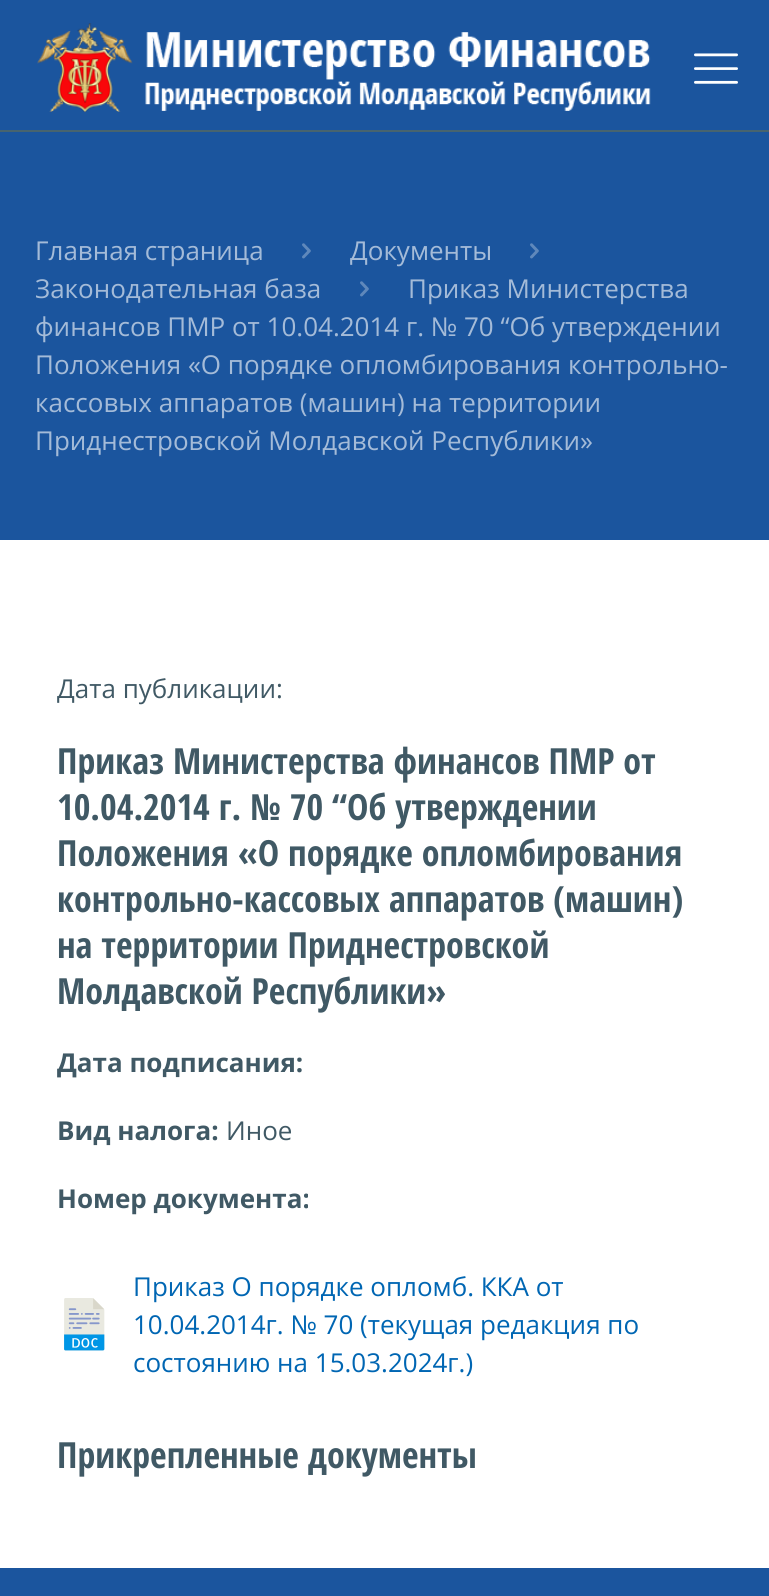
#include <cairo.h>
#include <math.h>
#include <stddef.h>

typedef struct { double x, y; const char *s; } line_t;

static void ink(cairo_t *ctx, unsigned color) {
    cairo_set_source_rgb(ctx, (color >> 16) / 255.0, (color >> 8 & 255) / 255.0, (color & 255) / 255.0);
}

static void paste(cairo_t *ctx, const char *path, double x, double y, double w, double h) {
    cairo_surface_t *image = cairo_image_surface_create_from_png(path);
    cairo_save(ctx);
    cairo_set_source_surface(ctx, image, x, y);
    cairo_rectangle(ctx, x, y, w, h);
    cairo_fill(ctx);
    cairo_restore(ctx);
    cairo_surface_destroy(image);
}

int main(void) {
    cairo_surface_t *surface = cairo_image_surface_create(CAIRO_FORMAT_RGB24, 769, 1596);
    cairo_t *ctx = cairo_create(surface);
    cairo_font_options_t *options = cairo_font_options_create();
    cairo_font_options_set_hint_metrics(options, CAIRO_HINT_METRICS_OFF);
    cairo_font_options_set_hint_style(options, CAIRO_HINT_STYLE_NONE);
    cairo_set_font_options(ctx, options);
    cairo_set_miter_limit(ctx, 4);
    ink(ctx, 0xFFFFFF);
    cairo_paint(ctx);
    ink(ctx, 0x1B559E);
    cairo_rectangle(ctx, 0, 0, 769, 130);
    cairo_fill(ctx);
    ink(ctx, 0x47646F);
    cairo_rectangle(ctx, 0, 130, 769, 2);
    cairo_fill(ctx);
    paste(ctx, "media/1.png", 37, 23, 614, 89);
    paste(ctx, "media/2.png", 694, 53, 44, 31);
    ink(ctx, 0x1B559E);
    cairo_rectangle(ctx, 0, 132, 769, 408);
    cairo_fill(ctx);
    cairo_select_font_face(ctx, "Open Sans", CAIRO_FONT_SLANT_NORMAL, CAIRO_FONT_WEIGHT_NORMAL);
    cairo_set_font_size(ctx, 26);
    ink(ctx, 0xA4BBD8);
    cairo_move_to(ctx, 350, 260);
    cairo_show_text(ctx, "Документы");
    paste(ctx, "media/3.png", 530, 243, 9, 16);
    cairo_move_to(ctx, 35, 298);
    cairo_show_text(ctx, "Законодательная база");
    paste(ctx, "media/3.png", 360, 281, 9, 16);
    {
        static const line_t items[] = {
            {408, 298, "Приказ Министерства"},
            {35, 336, "финансов ПМР от 10.04.2014 г. № 70 “Об утверждении"},
            {35, 374, "Положения «О порядке опломбирования контрольно-"},
            {35, 412, "кассовых аппаратов (машин) на территории"},
            {35, 450, "Приднестровской Молдавской Республики»"},
            {35, 260, "Главная страница"},
        };
        for (size_t i = 0; i < sizeof items / sizeof *items; i++) {
            cairo_move_to(ctx, items[i].x, items[i].y);
            cairo_show_text(ctx, items[i].s);
        }
    }
    paste(ctx, "media/3.png", 302, 243, 9, 16);
    ink(ctx, 0x405965);
    cairo_move_to(ctx, 57, 698);
    cairo_show_text(ctx, "Дата публикации:");
    cairo_select_font_face(ctx, "Open Sans Condensed", CAIRO_FONT_SLANT_NORMAL, CAIRO_FONT_WEIGHT_BOLD);
    cairo_set_font_size(ctx, 36);
    {
        static const line_t items[] = {
            {57, 774, "Приказ Министерства финансов ПМР от"},
            {57, 820, "10.04.2014 г. № 70 “Об утверждении"},
            {57, 866, "Положения «О порядке опломбирования"},
            {57, 912, "контрольно-кассовых аппаратов (машин)"},
            {57, 958, "на территории Приднестровской"},
            {57, 1004, "Молдавской Республики»"},
        };
        for (size_t i = 0; i < sizeof items / sizeof *items; i++) {
            cairo_move_to(ctx, items[i].x, items[i].y);
            cairo_show_text(ctx, items[i].s);
        }
    }
    cairo_select_font_face(ctx, "Open Sans", CAIRO_FONT_SLANT_NORMAL, CAIRO_FONT_WEIGHT_BOLD);
    cairo_set_font_size(ctx, 26);
    cairo_move_to(ctx, 57, 1072);
    cairo_show_text(ctx, "Дата подписания:");
    cairo_move_to(ctx, 57, 1140);
    cairo_show_text(ctx, "Вид налога:");
    cairo_select_font_face(ctx, "Open Sans", CAIRO_FONT_SLANT_NORMAL, CAIRO_FONT_WEIGHT_NORMAL);
    cairo_move_to(ctx, 226, 1140);
    cairo_show_text(ctx, "Иное");
    cairo_select_font_face(ctx, "Open Sans", CAIRO_FONT_SLANT_NORMAL, CAIRO_FONT_WEIGHT_BOLD);
    cairo_move_to(ctx, 57, 1208);
    cairo_show_text(ctx, "Номер документа:");
    paste(ctx, "media/4.png", 64, 1298, 41, 53);
    cairo_select_font_face(ctx, "Open Sans", CAIRO_FONT_SLANT_NORMAL, CAIRO_FONT_WEIGHT_NORMAL);
    ink(ctx, 0x0066B3);
    {
        static const line_t items[] = {
            {133, 1296, "Приказ О порядке опломб. ККА от"},
            {133, 1334, "10.04.2014г. № 70 (текущая редакция по"},
            {133, 1372, "состоянию на 15.03.2024г.)"},
        };
        for (size_t i = 0; i < sizeof items / sizeof *items; i++) {
            cairo_move_to(ctx, items[i].x, items[i].y);
            cairo_show_text(ctx, items[i].s);
        }
    }
    cairo_select_font_face(ctx, "Open Sans Condensed", CAIRO_FONT_SLANT_NORMAL, CAIRO_FONT_WEIGHT_BOLD);
    cairo_set_font_size(ctx, 36);
    ink(ctx, 0x405965);
    cairo_move_to(ctx, 57, 1468);
    cairo_show_text(ctx, "Прикрепленные документы");
    ink(ctx, 0x1B559E);
    cairo_rectangle(ctx, 0, 1568, 769, 28);
    cairo_fill(ctx);
    cairo_surface_write_to_png(surface, "image.png");
    cairo_font_options_destroy(options);
    cairo_destroy(ctx);
    cairo_surface_destroy(surface);
    return 0;
}
